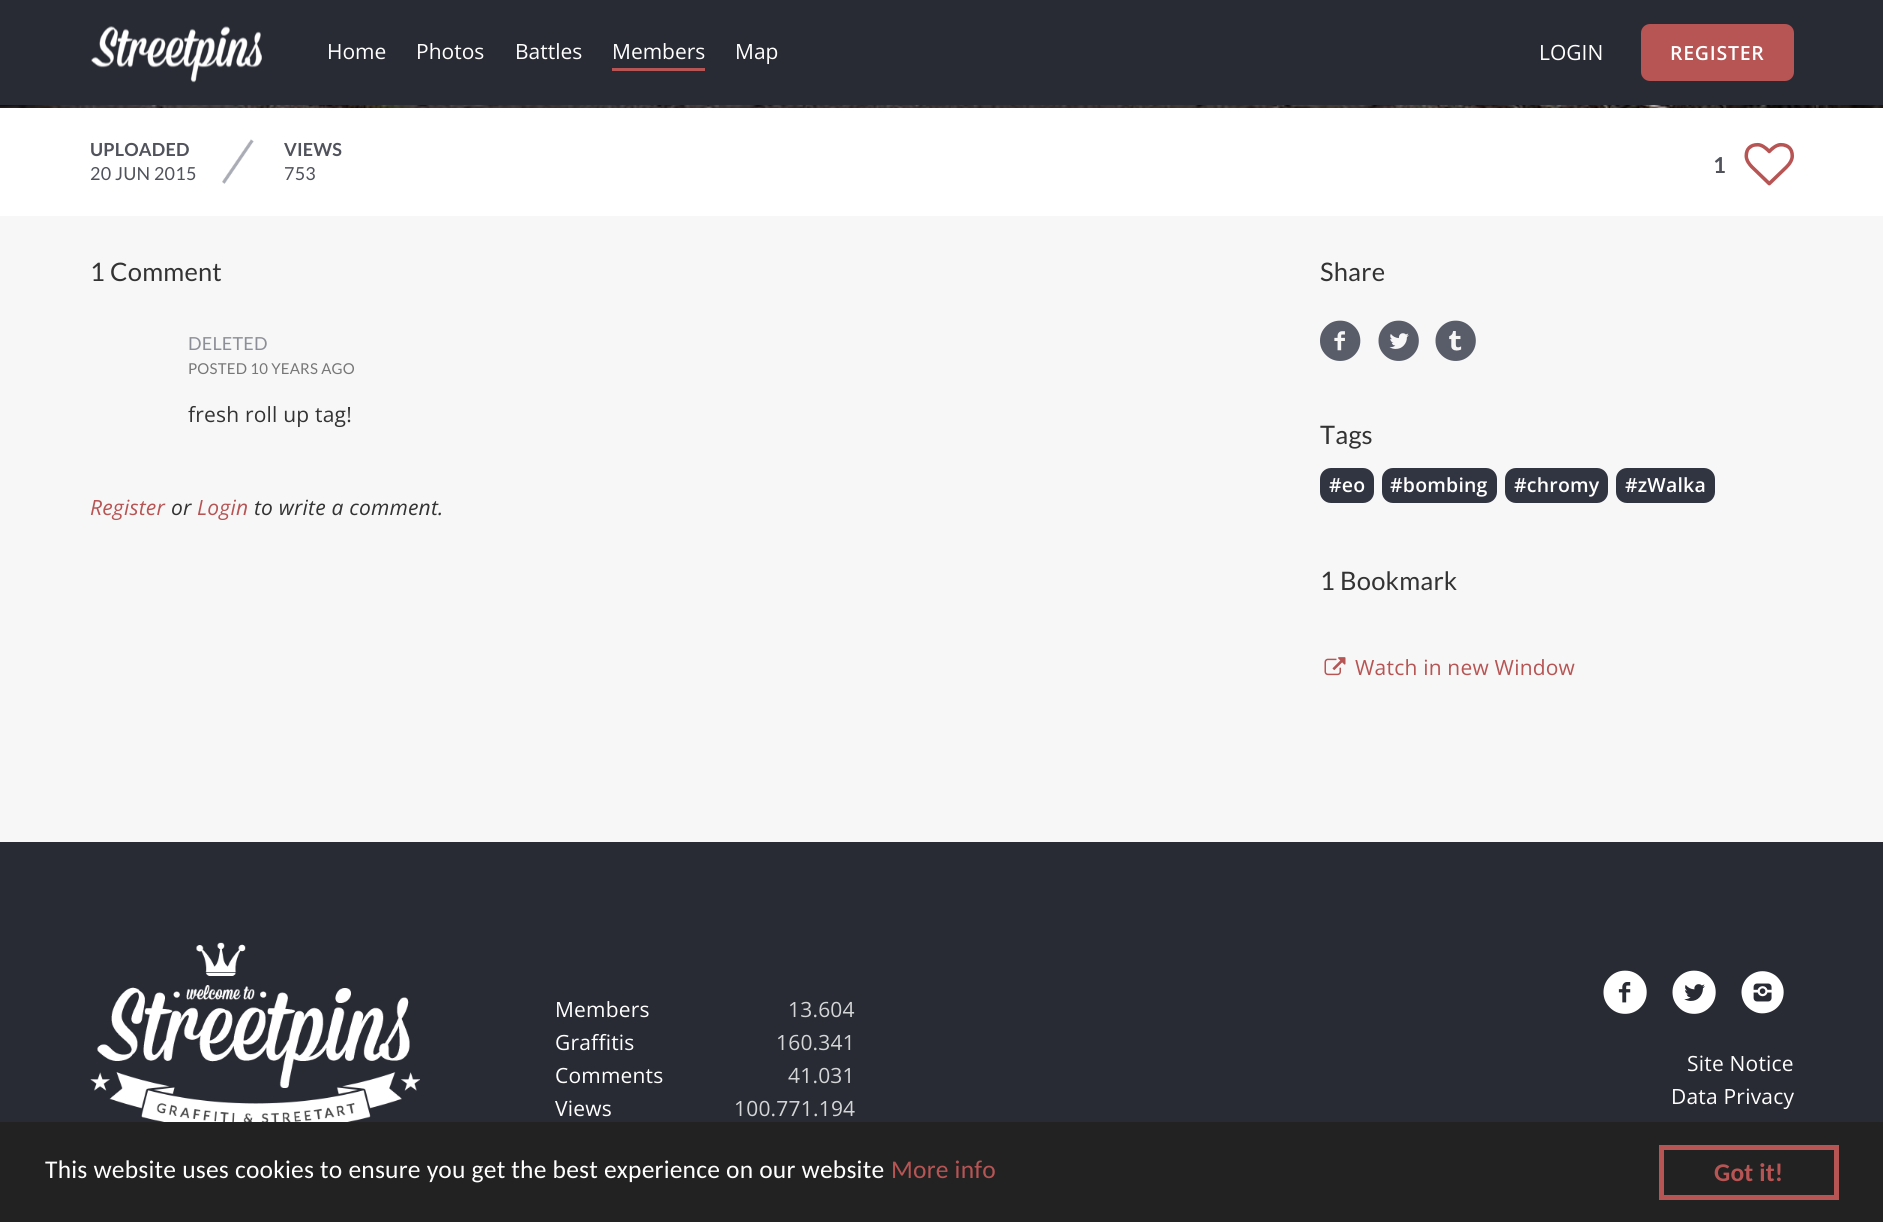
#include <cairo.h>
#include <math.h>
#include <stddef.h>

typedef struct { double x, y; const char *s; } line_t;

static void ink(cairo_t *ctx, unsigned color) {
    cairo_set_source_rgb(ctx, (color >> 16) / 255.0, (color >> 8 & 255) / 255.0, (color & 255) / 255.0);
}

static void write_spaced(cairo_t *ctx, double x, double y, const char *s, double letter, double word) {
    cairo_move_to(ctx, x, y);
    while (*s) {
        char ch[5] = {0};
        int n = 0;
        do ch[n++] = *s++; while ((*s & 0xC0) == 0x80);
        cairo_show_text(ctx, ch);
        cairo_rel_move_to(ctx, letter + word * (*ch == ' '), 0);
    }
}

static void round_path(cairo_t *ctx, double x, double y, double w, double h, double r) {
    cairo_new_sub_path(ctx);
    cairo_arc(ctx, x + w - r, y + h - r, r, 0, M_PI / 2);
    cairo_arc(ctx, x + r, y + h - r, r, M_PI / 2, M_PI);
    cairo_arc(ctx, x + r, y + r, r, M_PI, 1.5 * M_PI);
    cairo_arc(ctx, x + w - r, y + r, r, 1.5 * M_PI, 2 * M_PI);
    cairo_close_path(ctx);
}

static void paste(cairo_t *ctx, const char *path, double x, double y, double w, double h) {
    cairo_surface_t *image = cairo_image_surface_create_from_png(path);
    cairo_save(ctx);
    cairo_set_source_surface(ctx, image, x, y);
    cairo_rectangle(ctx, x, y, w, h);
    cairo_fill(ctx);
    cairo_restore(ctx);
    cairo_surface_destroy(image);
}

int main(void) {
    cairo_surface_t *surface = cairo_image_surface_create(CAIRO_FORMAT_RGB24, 1883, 1222);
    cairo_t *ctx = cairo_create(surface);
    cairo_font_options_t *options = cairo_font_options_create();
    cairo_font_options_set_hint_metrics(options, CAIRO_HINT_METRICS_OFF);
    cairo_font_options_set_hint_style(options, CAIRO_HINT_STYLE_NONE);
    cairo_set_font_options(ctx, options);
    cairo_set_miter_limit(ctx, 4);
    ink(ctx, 0xF7F7F7);
    cairo_paint(ctx);
    ink(ctx, 0x282B34);
    cairo_rectangle(ctx, 0, 0, 1883, 105);
    cairo_fill(ctx);
    paste(ctx, "media/1.png", 91, 26, 171, 57);
    cairo_select_font_face(ctx, "Open Sans", CAIRO_FONT_SLANT_NORMAL, CAIRO_FONT_WEIGHT_NORMAL);
    cairo_set_font_size(ctx, 21);
    ink(ctx, 0xFFFFFF);
    {
        static const line_t items[] = {
            {327, 59, "Home"},
            {416, 59, "Photos"},
            {515, 59, "Battles"},
        };
        for (size_t i = 0; i < sizeof items / sizeof *items; i++) {
            cairo_move_to(ctx, items[i].x, items[i].y);
            cairo_show_text(ctx, items[i].s);
        }
    }
    ink(ctx, 0xB75454);
    cairo_rectangle(ctx, 612, 68, 93, 3);
    cairo_fill(ctx);
    ink(ctx, 0xFFFFFF);
    {
        static const line_t items[] = {
            {612, 59, "Members"},
            {735, 59, "Map"},
            {1539, 60, "LOGIN"},
        };
        for (size_t i = 0; i < sizeof items / sizeof *items; i++) {
            cairo_move_to(ctx, items[i].x, items[i].y);
            cairo_show_text(ctx, items[i].s);
        }
    }
    ink(ctx, 0xB75454);
    round_path(ctx, 1641, 24, 153, 57, 9);
    cairo_fill(ctx);
    cairo_select_font_face(ctx, "Open Sans SemiBold", CAIRO_FONT_SLANT_NORMAL, CAIRO_FONT_WEIGHT_NORMAL);
    cairo_set_font_size(ctx, 19.5);
    ink(ctx, 0xFFFFFF);
    write_spaced(ctx, 1670, 60, "REGISTER", 0.75, 0);
    paste(ctx, "media/2.png", 0, 105, 1883, 3);
    cairo_rectangle(ctx, 0, 108, 1883, 108);
    cairo_fill(ctx);
    cairo_select_font_face(ctx, "Lato", CAIRO_FONT_SLANT_NORMAL, CAIRO_FONT_WEIGHT_BOLD);
    cairo_set_font_size(ctx, 18);
    ink(ctx, 0x50535C);
    write_spaced(ctx, 90, 156, "UPLOADED", 0.2, 0);
    cairo_select_font_face(ctx, "Lato", CAIRO_FONT_SLANT_NORMAL, CAIRO_FONT_WEIGHT_NORMAL);
    write_spaced(ctx, 90, 180, "20 JUN 2015", 0.2, 0);
    paste(ctx, "media/3.png", 222, 139, 32, 45);
    cairo_select_font_face(ctx, "Lato", CAIRO_FONT_SLANT_NORMAL, CAIRO_FONT_WEIGHT_BOLD);
    write_spaced(ctx, 284, 156, "VIEWS", 0.2, 0);
    cairo_select_font_face(ctx, "Lato", CAIRO_FONT_SLANT_NORMAL, CAIRO_FONT_WEIGHT_NORMAL);
    write_spaced(ctx, 284, 180, "753", 0.2, 0);
    cairo_select_font_face(ctx, "Lato", CAIRO_FONT_SLANT_NORMAL, CAIRO_FONT_WEIGHT_BOLD);
    cairo_set_font_size(ctx, 22);
    write_spaced(ctx, 1713, 173, "1", 0.2, 0);
    paste(ctx, "media/4.png", 1744, 142, 50, 44);
    cairo_select_font_face(ctx, "Lato", CAIRO_FONT_SLANT_NORMAL, CAIRO_FONT_WEIGHT_NORMAL);
    cairo_set_font_size(ctx, 25.5);
    ink(ctx, 0x333333);
    write_spaced(ctx, 90, 281, "1 Comment", 0.2, 0);
    cairo_set_font_size(ctx, 18);
    ink(ctx, 0x8C8F98);
    write_spaced(ctx, 188, 350, "DELETED", 0.2, 0);
    cairo_set_font_size(ctx, 15);
    ink(ctx, 0x777777);
    write_spaced(ctx, 188, 374, "POSTED 10 YEARS AGO", 0.2, 0);
    cairo_select_font_face(ctx, "Open Sans", CAIRO_FONT_SLANT_NORMAL, CAIRO_FONT_WEIGHT_NORMAL);
    cairo_set_font_size(ctx, 21);
    ink(ctx, 0x333333);
    write_spaced(ctx, 188, 422, "fresh roll up tag!", 0.2, 0);
    cairo_select_font_face(ctx, "Open Sans", CAIRO_FONT_SLANT_ITALIC, CAIRO_FONT_WEIGHT_NORMAL);
    ink(ctx, 0xB75454);
    write_spaced(ctx, 90, 515, "Register", 0.2, 0);
    ink(ctx, 0x333333);
    write_spaced(ctx, 171, 515, "or", 0.2, 0);
    ink(ctx, 0xB75454);
    write_spaced(ctx, 197, 515, "Login", 0.2, 0);
    ink(ctx, 0x333333);
    write_spaced(ctx, 254, 515, "to write a comment.", 0.2, 0);
    cairo_select_font_face(ctx, "Lato", CAIRO_FONT_SLANT_NORMAL, CAIRO_FONT_WEIGHT_NORMAL);
    cairo_set_font_size(ctx, 25.5);
    write_spaced(ctx, 1320, 281, "Share", 0.2, 0);
    paste(ctx, "media/5.png", 1320, 320, 41, 41);
    paste(ctx, "media/6.png", 1378, 320, 41, 41);
    paste(ctx, "media/7.png", 1435, 320, 41, 41);
    write_spaced(ctx, 1320, 444, "Tags", 0.2, 0);
    ink(ctx, 0x313541);
    round_path(ctx, 1320, 468, 54, 35, 11);
    cairo_fill(ctx);
    cairo_select_font_face(ctx, "Open Sans SemiBold", CAIRO_FONT_SLANT_NORMAL, CAIRO_FONT_WEIGHT_NORMAL);
    cairo_set_font_size(ctx, 19.5);
    ink(ctx, 0xFFFFFF);
    write_spaced(ctx, 1329, 492, "#eo", 0.2, 0);
    ink(ctx, 0x313541);
    round_path(ctx, 1382, 468, 115, 35, 11);
    cairo_fill(ctx);
    ink(ctx, 0xFFFFFF);
    write_spaced(ctx, 1390, 492, "#bombing", 0.2, 0);
    ink(ctx, 0x313541);
    round_path(ctx, 1505, 468, 103, 35, 11);
    cairo_fill(ctx);
    ink(ctx, 0xFFFFFF);
    write_spaced(ctx, 1514, 492, "#chromy", 0.2, 0);
    ink(ctx, 0x313541);
    round_path(ctx, 1616, 468, 99, 35, 11);
    cairo_fill(ctx);
    ink(ctx, 0xFFFFFF);
    write_spaced(ctx, 1625, 492, "#zWalka", 0.2, 0);
    cairo_select_font_face(ctx, "Lato", CAIRO_FONT_SLANT_NORMAL, CAIRO_FONT_WEIGHT_NORMAL);
    cairo_set_font_size(ctx, 25.5);
    ink(ctx, 0x333333);
    write_spaced(ctx, 1320, 590, "1 Bookmark", 0.2, 0);
    paste(ctx, "media/8.png", 1324, 657, 22, 19);
    cairo_select_font_face(ctx, "Open Sans", CAIRO_FONT_SLANT_NORMAL, CAIRO_FONT_WEIGHT_NORMAL);
    cairo_set_font_size(ctx, 21);
    ink(ctx, 0xB75454);
    write_spaced(ctx, 1355, 675, "Watch in new Window", 0.2, 0);
    ink(ctx, 0x282B34);
    cairo_rectangle(ctx, 0, 842, 1883, 280);
    cairo_fill(ctx);
    paste(ctx, "media/9.png", 90, 942, 330, 180);
    ink(ctx, 0xFFFFFF);
    write_spaced(ctx, 555, 1017, "Members", 0.2, 0);
    ink(ctx, 0xD4D5D6);
    write_spaced(ctx, 788, 1017, "13.604", 0.2, 0);
    ink(ctx, 0xFFFFFF);
    write_spaced(ctx, 555, 1050, "Graffitis", 0.2, 0);
    ink(ctx, 0xD4D5D6);
    write_spaced(ctx, 776, 1050, "160.341", 0.2, 0);
    ink(ctx, 0xFFFFFF);
    write_spaced(ctx, 555, 1083, "Comments", 0.2, 0);
    ink(ctx, 0xD4D5D6);
    write_spaced(ctx, 788, 1083, "41.031", 0.2, 0);
    ink(ctx, 0xFFFFFF);
    write_spaced(ctx, 555, 1116, "Views", 0.2, 0);
    ink(ctx, 0xD4D5D6);
    write_spaced(ctx, 734, 1116, "100.771.194", 0.2, 0);
    paste(ctx, "media/10.png", 1603, 970, 44, 44);
    paste(ctx, "media/11.png", 1672, 970, 44, 44);
    paste(ctx, "media/12.png", 1741, 971, 43, 43);
    ink(ctx, 0xFFFFFF);
    write_spaced(ctx, 1687, 1071, "Site Notice", 0.2, 0);
    write_spaced(ctx, 1671, 1104, "Data Privacy", 0.2, 0);
    ink(ctx, 0x222222);
    cairo_rectangle(ctx, 0, 1122, 1883, 100);
    cairo_fill(ctx);
    cairo_select_font_face(ctx, "Carlito", CAIRO_FONT_SLANT_NORMAL, CAIRO_FONT_WEIGHT_NORMAL);
    cairo_set_font_size(ctx, 25.5);
    ink(ctx, 0xFFFFFF);
    write_spaced(ctx, 45, 1178, "This website uses cookies to ensure you get the best experience on our website", 0.2, 0);
    ink(ctx, 0xB75454);
    write_spaced(ctx, 891, 1178, "More info", 0.2, 0);
    cairo_rectangle(ctx, 1661.5, 1147.5, 175, 50);
    cairo_set_line_width(ctx, 5);
    cairo_stroke(ctx);
    cairo_select_font_face(ctx, "Carlito", CAIRO_FONT_SLANT_NORMAL, CAIRO_FONT_WEIGHT_BOLD);
    write_spaced(ctx, 1714, 1181, "Got it!", 0.2, 0);
    cairo_surface_write_to_png(surface, "image.png");
    cairo_font_options_destroy(options);
    cairo_destroy(ctx);
    cairo_surface_destroy(surface);
    return 0;
}
